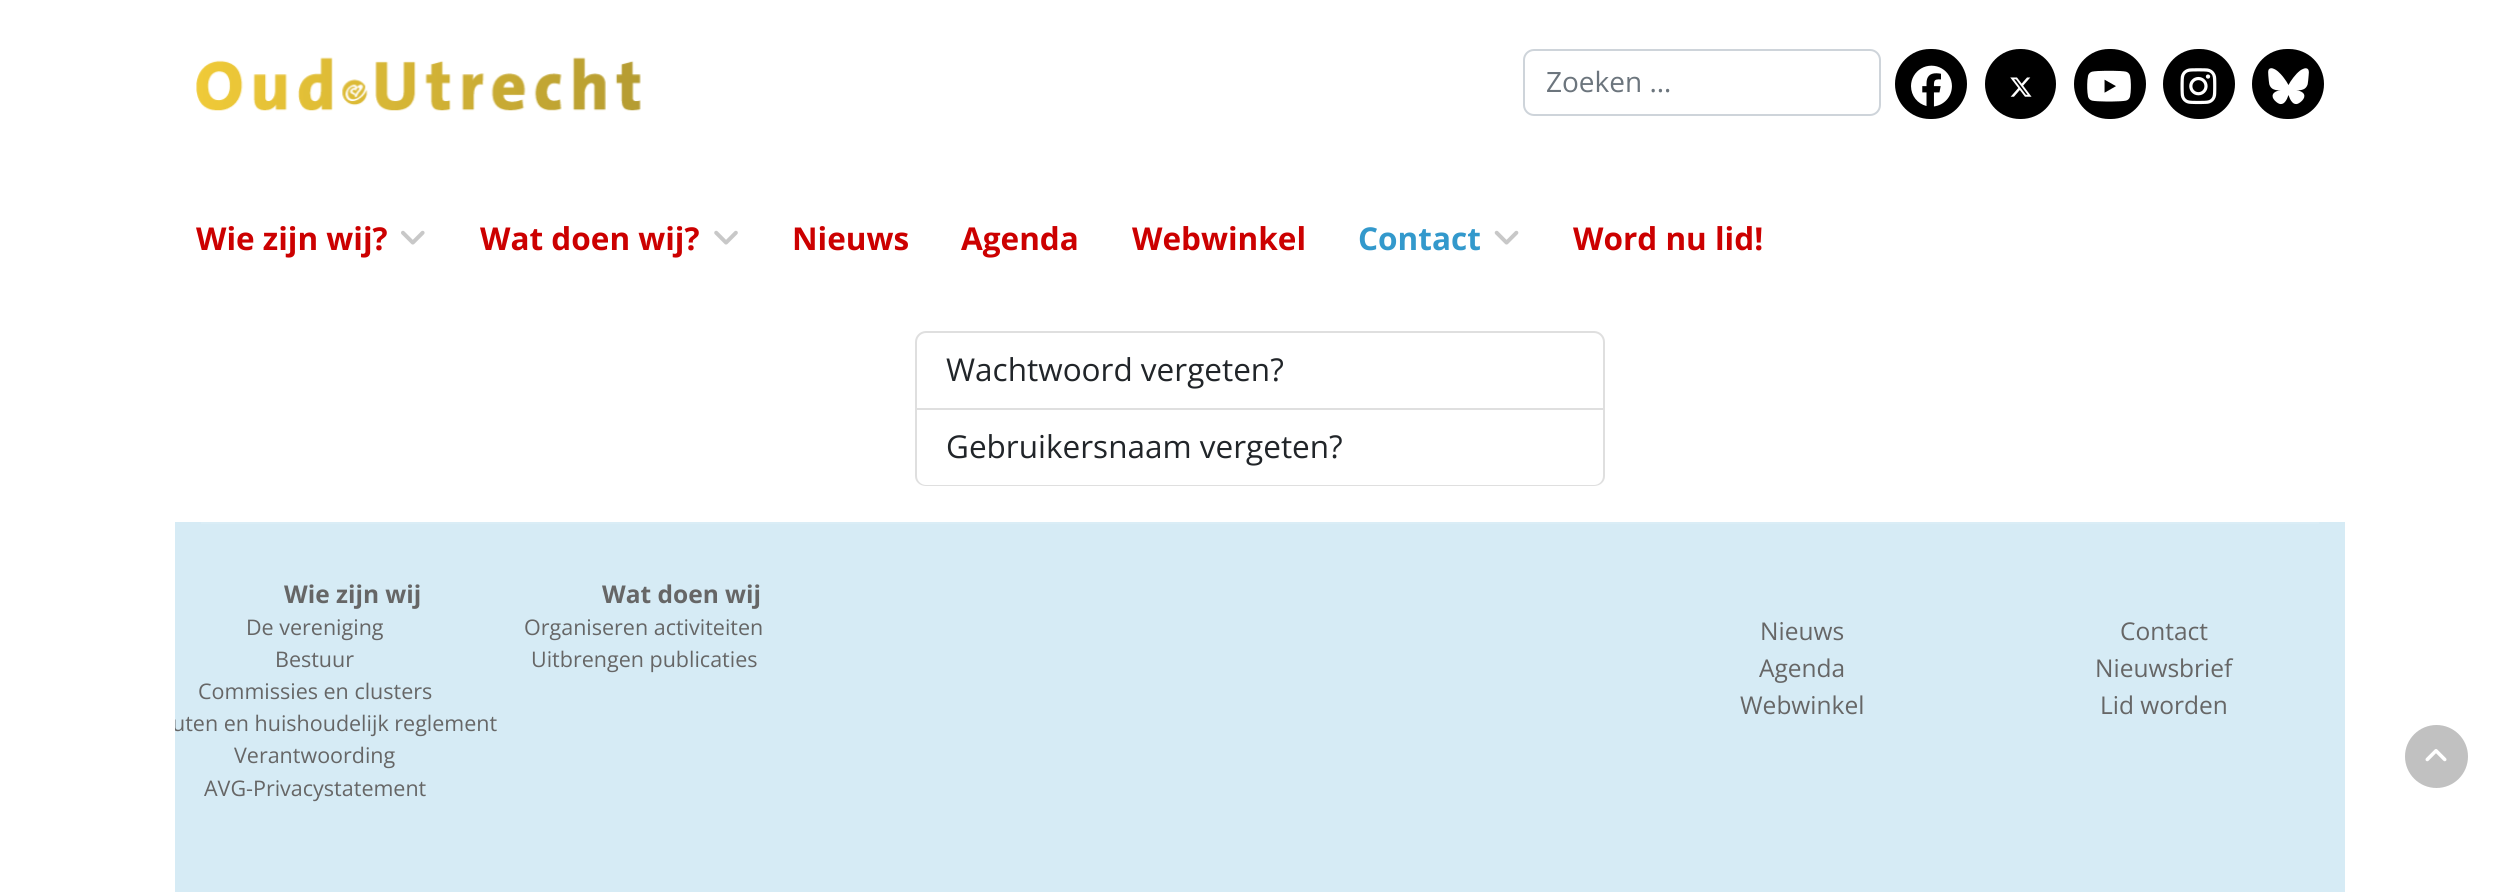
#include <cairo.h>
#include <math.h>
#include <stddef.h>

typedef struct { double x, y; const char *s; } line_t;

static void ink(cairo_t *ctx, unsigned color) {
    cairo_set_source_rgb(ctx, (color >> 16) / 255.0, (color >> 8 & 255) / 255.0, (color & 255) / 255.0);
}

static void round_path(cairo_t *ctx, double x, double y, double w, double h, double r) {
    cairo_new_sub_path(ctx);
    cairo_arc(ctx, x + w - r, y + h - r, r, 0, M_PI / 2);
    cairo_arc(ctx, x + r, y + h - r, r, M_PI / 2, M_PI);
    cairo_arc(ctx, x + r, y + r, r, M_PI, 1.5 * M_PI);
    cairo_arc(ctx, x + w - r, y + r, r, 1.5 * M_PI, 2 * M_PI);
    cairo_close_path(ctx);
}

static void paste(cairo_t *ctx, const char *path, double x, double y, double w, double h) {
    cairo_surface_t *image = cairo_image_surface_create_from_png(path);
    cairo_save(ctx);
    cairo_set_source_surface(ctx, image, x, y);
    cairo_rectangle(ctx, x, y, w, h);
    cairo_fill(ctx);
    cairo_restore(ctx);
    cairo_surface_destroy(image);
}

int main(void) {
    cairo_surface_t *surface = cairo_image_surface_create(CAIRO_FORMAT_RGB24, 2520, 892);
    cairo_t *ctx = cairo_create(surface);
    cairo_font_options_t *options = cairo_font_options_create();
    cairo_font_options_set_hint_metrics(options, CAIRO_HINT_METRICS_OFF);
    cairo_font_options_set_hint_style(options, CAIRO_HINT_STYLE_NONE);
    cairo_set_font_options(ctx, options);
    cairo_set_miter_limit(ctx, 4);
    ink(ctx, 0xFFFFFF);
    cairo_paint(ctx);
    paste(ctx, "media/1.png", 196, 57, 445, 54);
    round_path(ctx, 1524, 50, 356, 65, 10);
    ink(ctx, 0xCED4DA);
    cairo_stroke(ctx);
    cairo_select_font_face(ctx, "Open Sans", CAIRO_FONT_SLANT_NORMAL, CAIRO_FONT_WEIGHT_NORMAL);
    cairo_set_font_size(ctx, 28);
    ink(ctx, 0x6C757D);
    cairo_move_to(ctx, 1546, 92);
    cairo_show_text(ctx, "Zoeken …");
    ink(ctx, 0x000000);
    round_path(ctx, 1895, 49, 72, 70, 35);
    cairo_fill(ctx);
    paste(ctx, "media/2.png", 1911, 65, 41, 42);
    round_path(ctx, 1985, 49, 71, 70, 35);
    cairo_fill(ctx);
    paste(ctx, "media/3.png", 2010, 77, 22, 20);
    round_path(ctx, 2074, 49, 72, 70, 35);
    cairo_fill(ctx);
    paste(ctx, "media/4.png", 2087, 70, 44, 32);
    round_path(ctx, 2163, 49, 72, 70, 35);
    cairo_fill(ctx);
    paste(ctx, "media/5.png", 2180, 68, 37, 37);
    round_path(ctx, 2252, 49, 72, 70, 35);
    cairo_fill(ctx);
    paste(ctx, "media/6.png", 2268, 68, 41, 37);
    cairo_select_font_face(ctx, "Open Sans", CAIRO_FONT_SLANT_NORMAL, CAIRO_FONT_WEIGHT_BOLD);
    cairo_set_font_size(ctx, 31.5);
    ink(ctx, 0xCC0000);
    cairo_move_to(ctx, 196, 250);
    cairo_show_text(ctx, "Wie zijn wij?");
    paste(ctx, "media/7.png", 401, 230, 24, 15);
    cairo_move_to(ctx, 480, 250);
    cairo_show_text(ctx, "Wat doen wij?");
    paste(ctx, "media/8.png", 714, 230, 24, 15);
    {
        static const line_t items[] = {
            {792, 250, "Nieuws"},
            {961, 250, "Agenda"},
            {1132, 250, "Webwinkel"},
        };
        for (size_t i = 0; i < sizeof items / sizeof *items; i++) {
            cairo_move_to(ctx, items[i].x, items[i].y);
            cairo_show_text(ctx, items[i].s);
        }
    }
    ink(ctx, 0x3399CC);
    cairo_move_to(ctx, 1358, 250);
    cairo_show_text(ctx, "Contact");
    paste(ctx, "media/9.png", 1494, 230, 25, 15);
    ink(ctx, 0xCC0000);
    cairo_move_to(ctx, 1573, 250);
    cairo_show_text(ctx, "Word nu lid!");
    cairo_new_path(ctx);
    cairo_move_to(ctx, 926, 332);
    cairo_line_to(ctx, 1594, 332);
    cairo_curve_to(ctx, 1599.5, 332, 1604, 336.5, 1604, 342);
    cairo_line_to(ctx, 1604, 409);
    cairo_line_to(ctx, 916, 409);
    cairo_line_to(ctx, 916, 342);
    cairo_curve_to(ctx, 916, 336.5, 920.5, 332, 926, 332);
    cairo_close_path(ctx);
    ink(ctx, 0xDFDFDF);
    cairo_stroke(ctx);
    cairo_select_font_face(ctx, "Open Sans", CAIRO_FONT_SLANT_NORMAL, CAIRO_FONT_WEIGHT_NORMAL);
    ink(ctx, 0x212529);
    cairo_move_to(ctx, 946, 381);
    cairo_show_text(ctx, "Wachtwoord vergeten?");
    ink(ctx, 0xDFDFDF);
    cairo_set_fill_rule(ctx, CAIRO_FILL_RULE_EVEN_ODD);
    cairo_new_path(ctx);
    cairo_move_to(ctx, 915, 410);
    cairo_line_to(ctx, 1605, 410);
    cairo_line_to(ctx, 1605, 476);
    cairo_curve_to(ctx, 1605, 482, 1600, 486, 1594, 486);
    cairo_line_to(ctx, 926, 486);
    cairo_curve_to(ctx, 920, 486, 915, 482, 915, 476);
    cairo_close_path(ctx);
    cairo_move_to(ctx, 917, 410);
    cairo_line_to(ctx, 1603, 410);
    cairo_line_to(ctx, 1603, 476);
    cairo_curve_to(ctx, 1603, 481, 1599, 485, 1594, 485);
    cairo_line_to(ctx, 926, 485);
    cairo_curve_to(ctx, 921, 485, 917, 481, 917, 476);
    cairo_close_path(ctx);
    cairo_fill(ctx);
    ink(ctx, 0x212529);
    cairo_move_to(ctx, 946, 458);
    cairo_show_text(ctx, "Gebruikersnaam vergeten?");
    ink(ctx, 0xD6EBF5);
    cairo_rectangle(ctx, 175, 522, 2170, 370);
    cairo_fill(ctx);
    ink(ctx, 0xDAEDF6);
    cairo_rectangle(ctx, 201, 522, 2118, 2);
    cairo_fill(ctx);
    cairo_select_font_face(ctx, "Open Sans", CAIRO_FONT_SLANT_NORMAL, CAIRO_FONT_WEIGHT_BOLD);
    cairo_set_font_size(ctx, 24.5);
    ink(ctx, 0x666666);
    cairo_move_to(ctx, 284, 603);
    cairo_show_text(ctx, "Wie zijn wij");
    cairo_select_font_face(ctx, "Open Sans", CAIRO_FONT_SLANT_NORMAL, CAIRO_FONT_WEIGHT_NORMAL);
    cairo_set_font_size(ctx, 21.5);
    {
        static const line_t items[] = {
            {246, 635, "De vereniging"},
            {275, 667, "Bestuur"},
            {198, 699, "Commissies en clusters"},
        };
        for (size_t i = 0; i < sizeof items / sizeof *items; i++) {
            cairo_move_to(ctx, items[i].x, items[i].y);
            cairo_show_text(ctx, items[i].s);
        }
    }
    cairo_save(ctx);
    cairo_set_fill_rule(ctx, CAIRO_FILL_RULE_WINDING);
    cairo_rectangle(ctx, 175, 0, 2170, 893);
    cairo_clip(ctx);
    cairo_move_to(ctx, 172, 731);
    cairo_show_text(ctx, "uten en huishoudelijk reglement");
    cairo_restore(ctx);
    cairo_move_to(ctx, 234, 763);
    cairo_show_text(ctx, "Verantwoording");
    cairo_move_to(ctx, 204, 796);
    cairo_show_text(ctx, "AVG-Privacystatement");
    cairo_select_font_face(ctx, "Open Sans", CAIRO_FONT_SLANT_NORMAL, CAIRO_FONT_WEIGHT_BOLD);
    cairo_set_font_size(ctx, 24.5);
    cairo_move_to(ctx, 602, 603);
    cairo_show_text(ctx, "Wat doen wij");
    cairo_select_font_face(ctx, "Open Sans", CAIRO_FONT_SLANT_NORMAL, CAIRO_FONT_WEIGHT_NORMAL);
    cairo_set_font_size(ctx, 21.5);
    cairo_move_to(ctx, 524, 635);
    cairo_show_text(ctx, "Organiseren activiteiten");
    cairo_move_to(ctx, 531, 667);
    cairo_show_text(ctx, "Uitbrengen publicaties");
    cairo_set_font_size(ctx, 24.5);
    {
        static const line_t items[] = {
            {1760, 640, "Nieuws"},
            {1759, 677, "Agenda"},
            {1740, 714, "Webwinkel"},
            {2120, 640, "Contact"},
            {2095, 677, "Nieuwsbrief"},
            {2100, 714, "Lid worden"},
        };
        for (size_t i = 0; i < sizeof items / sizeof *items; i++) {
            cairo_move_to(ctx, items[i].x, items[i].y);
            cairo_show_text(ctx, items[i].s);
        }
    }
    ink(ctx, 0xC1C1C1);
    cairo_new_path(ctx);
    cairo_arc(ctx, 2436.5, 756.5, 31.5, 0, 2 * M_PI);
    cairo_fill(ctx);
    paste(ctx, "media/10.png", 2425, 749, 22, 13);
    cairo_surface_write_to_png(surface, "image.png");
    cairo_font_options_destroy(options);
    cairo_destroy(ctx);
    cairo_surface_destroy(surface);
    return 0;
}
